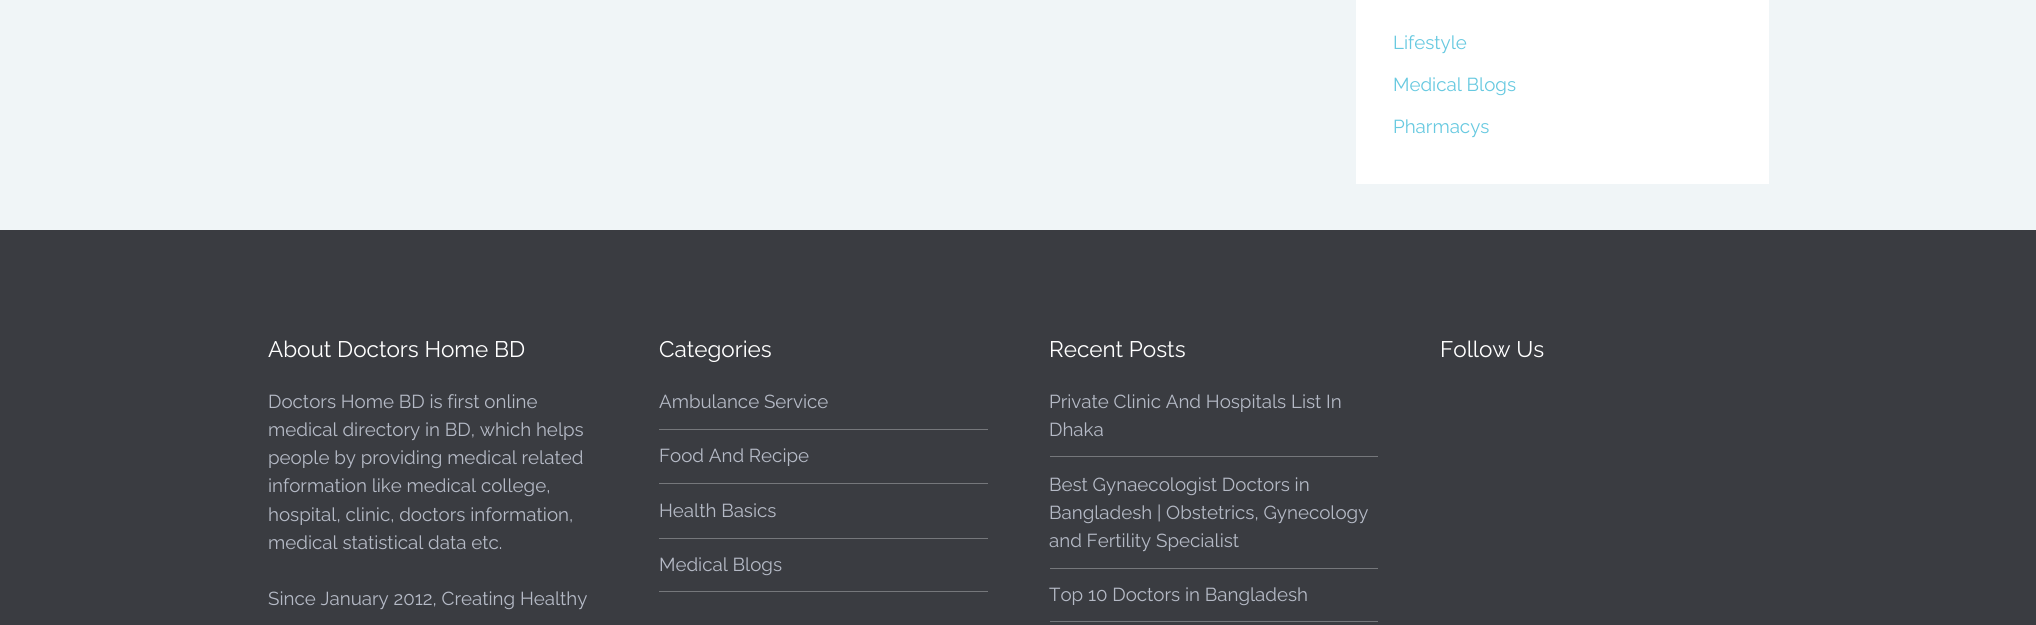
#include <cairo.h>
#include <math.h>
#include <stddef.h>

typedef struct { double x, y; const char *s; } line_t;

static void ink(cairo_t *ctx, unsigned color) {
    cairo_set_source_rgb(ctx, (color >> 16) / 255.0, (color >> 8 & 255) / 255.0, (color & 255) / 255.0);
}

int main(void) {
    cairo_surface_t *surface = cairo_image_surface_create(CAIRO_FORMAT_RGB24, 2036, 625);
    cairo_t *ctx = cairo_create(surface);
    cairo_font_options_t *options = cairo_font_options_create();
    cairo_font_options_set_hint_metrics(options, CAIRO_HINT_METRICS_OFF);
    cairo_font_options_set_hint_style(options, CAIRO_HINT_STYLE_NONE);
    cairo_set_font_options(ctx, options);
    cairo_set_miter_limit(ctx, 4);
    ink(ctx, 0xF0F5F7);
    cairo_paint(ctx);
    ink(ctx, 0xFFFFFF);
    cairo_rectangle(ctx, 1356, 0, 413, 184);
    cairo_fill(ctx);
    cairo_select_font_face(ctx, "Raleway", CAIRO_FONT_SLANT_NORMAL, CAIRO_FONT_WEIGHT_NORMAL);
    cairo_set_font_size(ctx, 18.75);
    ink(ctx, 0x67C9E0);
    {
        static const line_t items[] = {
            {1393, 49, "Lifestyle"},
            {1393, 91, "Medical Blogs"},
            {1393, 133, "Pharmacys"},
        };
        for (size_t i = 0; i < sizeof items / sizeof *items; i++) {
            cairo_move_to(ctx, items[i].x, items[i].y);
            cairo_show_text(ctx, items[i].s);
        }
    }
    ink(ctx, 0x3A3C41);
    cairo_rectangle(ctx, 0, 230, 2036, 395);
    cairo_fill(ctx);
    cairo_set_font_size(ctx, 22.5);
    ink(ctx, 0xFFFFFF);
    cairo_move_to(ctx, 268, 357);
    cairo_show_text(ctx, "About Doctors Home BD");
    cairo_set_font_size(ctx, 18.75);
    ink(ctx, 0xB5BAC6);
    {
        static const line_t items[] = {
            {268, 408, "Doctors Home BD is first online"},
            {268, 436, "medical directory in BD, which helps"},
            {268, 464, "people by providing medical related"},
            {268, 492, "information like medical college,"},
            {268, 521, "hospital, clinic, doctors information,"},
            {268, 549, "medical statistical data etc."},
            {268, 605, "Since January 2012, Creating Healthy"},
        };
        for (size_t i = 0; i < sizeof items / sizeof *items; i++) {
            cairo_move_to(ctx, items[i].x, items[i].y);
            cairo_show_text(ctx, items[i].s);
        }
    }
    cairo_set_font_size(ctx, 22.5);
    ink(ctx, 0xFFFFFF);
    cairo_move_to(ctx, 659, 357);
    cairo_show_text(ctx, "Categories");
    ink(ctx, 0x75777B);
    cairo_rectangle(ctx, 659, 429, 329, 1);
    cairo_fill(ctx);
    cairo_set_font_size(ctx, 18.75);
    ink(ctx, 0xB5BAC6);
    cairo_move_to(ctx, 659, 408);
    cairo_show_text(ctx, "Ambulance Service");
    ink(ctx, 0x75777B);
    cairo_rectangle(ctx, 659, 483, 329, 1);
    cairo_fill(ctx);
    ink(ctx, 0xB5BAC6);
    cairo_move_to(ctx, 659, 462);
    cairo_show_text(ctx, "Food And Recipe");
    ink(ctx, 0x75777B);
    cairo_rectangle(ctx, 659, 538, 329, 1);
    cairo_fill(ctx);
    ink(ctx, 0xB5BAC6);
    cairo_move_to(ctx, 659, 517);
    cairo_show_text(ctx, "Health Basics");
    ink(ctx, 0x75777B);
    cairo_rectangle(ctx, 659, 591, 329, 1);
    cairo_fill(ctx);
    ink(ctx, 0xB5BAC6);
    cairo_move_to(ctx, 659, 571);
    cairo_show_text(ctx, "Medical Blogs");
    cairo_set_font_size(ctx, 22.5);
    ink(ctx, 0xFFFFFF);
    cairo_move_to(ctx, 1049, 357);
    cairo_show_text(ctx, "Recent Posts");
    ink(ctx, 0x75777B);
    cairo_rectangle(ctx, 1050, 456, 328, 1);
    cairo_fill(ctx);
    cairo_set_font_size(ctx, 18.75);
    ink(ctx, 0xB5BAC6);
    cairo_move_to(ctx, 1049, 408);
    cairo_show_text(ctx, "Private Clinic And Hospitals List In");
    cairo_move_to(ctx, 1049, 436);
    cairo_show_text(ctx, "Dhaka");
    ink(ctx, 0x75777B);
    cairo_rectangle(ctx, 1050, 568, 328, 1);
    cairo_fill(ctx);
    ink(ctx, 0xB5BAC6);
    {
        static const line_t items[] = {
            {1049, 491, "Best Gynaecologist Doctors in"},
            {1049, 519, "Bangladesh | Obstetrics, Gynecology"},
            {1049, 547, "and Fertility Specialist"},
        };
        for (size_t i = 0; i < sizeof items / sizeof *items; i++) {
            cairo_move_to(ctx, items[i].x, items[i].y);
            cairo_show_text(ctx, items[i].s);
        }
    }
    ink(ctx, 0x75777B);
    cairo_rectangle(ctx, 1050, 621, 328, 1);
    cairo_fill(ctx);
    ink(ctx, 0xB5BAC6);
    cairo_move_to(ctx, 1049, 601);
    cairo_show_text(ctx, "Top 10 Doctors in Bangladesh");
    cairo_set_font_size(ctx, 22.5);
    ink(ctx, 0xFFFFFF);
    cairo_move_to(ctx, 1440, 357);
    cairo_show_text(ctx, "Follow Us");
    cairo_surface_write_to_png(surface, "image.png");
    cairo_font_options_destroy(options);
    cairo_destroy(ctx);
    cairo_surface_destroy(surface);
    return 0;
}
